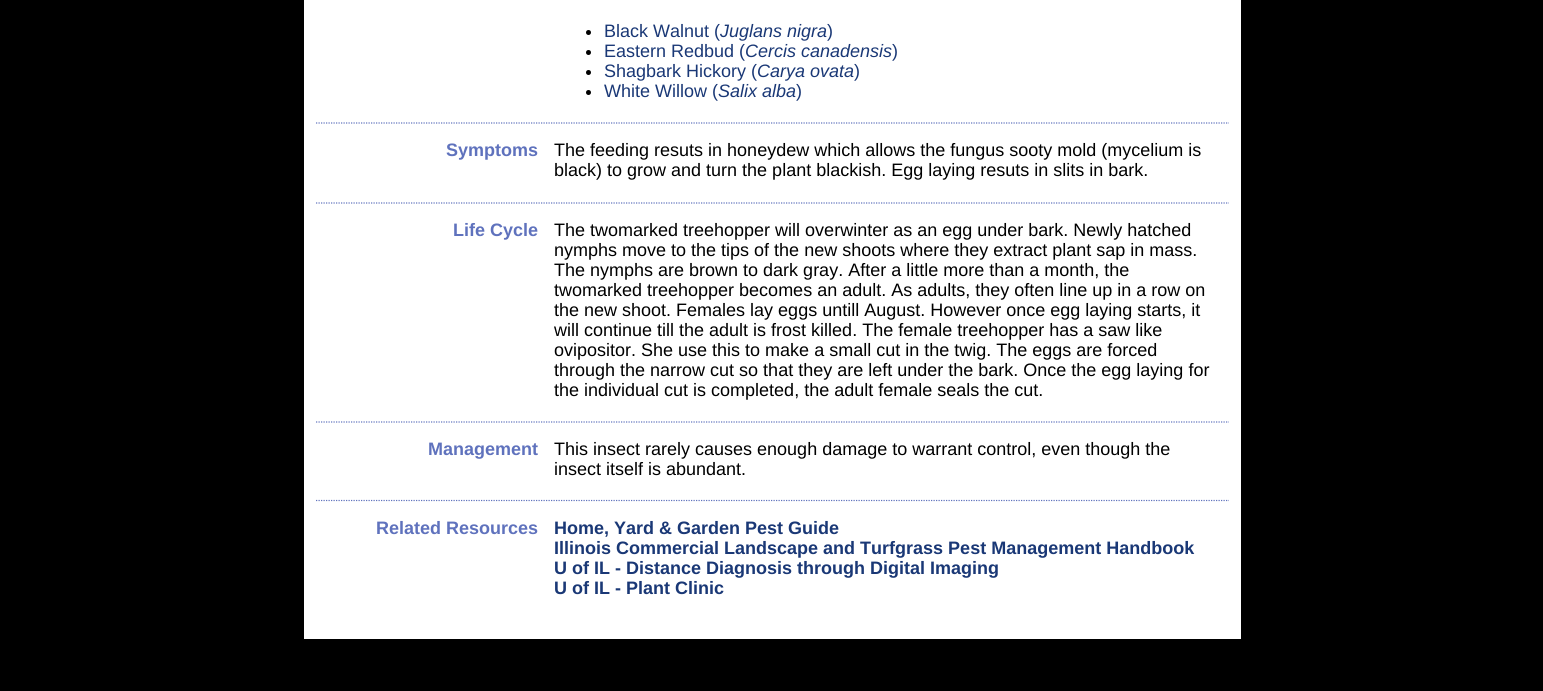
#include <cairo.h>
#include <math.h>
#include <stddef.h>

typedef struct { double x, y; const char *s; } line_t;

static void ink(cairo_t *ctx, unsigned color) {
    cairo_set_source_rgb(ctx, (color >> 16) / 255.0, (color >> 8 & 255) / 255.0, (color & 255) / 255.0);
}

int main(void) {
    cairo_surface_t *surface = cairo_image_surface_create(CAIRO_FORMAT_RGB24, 1543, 691);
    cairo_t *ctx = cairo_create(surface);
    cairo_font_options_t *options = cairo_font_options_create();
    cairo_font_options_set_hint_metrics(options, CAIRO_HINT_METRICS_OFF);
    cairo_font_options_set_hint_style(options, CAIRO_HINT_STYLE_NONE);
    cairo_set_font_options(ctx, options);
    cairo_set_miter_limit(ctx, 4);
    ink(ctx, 0x000000);
    cairo_paint(ctx);
    ink(ctx, 0xFFFFFF);
    cairo_rectangle(ctx, 304, 0, 937, 639);
    cairo_fill(ctx);
    ink(ctx, 0x000000);
    cairo_arc(ctx, 588.5, 32.5, 2.5, 0, 2 * M_PI);
    cairo_fill(ctx);
    cairo_select_font_face(ctx, "Liberation Sans", CAIRO_FONT_SLANT_NORMAL, CAIRO_FONT_WEIGHT_NORMAL);
    cairo_set_font_size(ctx, 18);
    ink(ctx, 0x1A3876);
    cairo_move_to(ctx, 604, 37);
    cairo_show_text(ctx, "Black Walnut (");
    cairo_select_font_face(ctx, "Liberation Sans", CAIRO_FONT_SLANT_ITALIC, CAIRO_FONT_WEIGHT_NORMAL);
    cairo_move_to(ctx, 720, 37);
    cairo_show_text(ctx, "Juglans nigra");
    cairo_select_font_face(ctx, "Liberation Sans", CAIRO_FONT_SLANT_NORMAL, CAIRO_FONT_WEIGHT_NORMAL);
    cairo_move_to(ctx, 827, 37);
    cairo_show_text(ctx, ")");
    ink(ctx, 0x000000);
    cairo_new_path(ctx);
    cairo_arc(ctx, 588.5, 52.5, 2.5, 0, 2 * M_PI);
    cairo_fill(ctx);
    ink(ctx, 0x1A3876);
    cairo_move_to(ctx, 604, 57);
    cairo_show_text(ctx, "Eastern Redbud (");
    cairo_select_font_face(ctx, "Liberation Sans", CAIRO_FONT_SLANT_ITALIC, CAIRO_FONT_WEIGHT_NORMAL);
    cairo_move_to(ctx, 745, 57);
    cairo_show_text(ctx, "Cercis canadensis");
    cairo_select_font_face(ctx, "Liberation Sans", CAIRO_FONT_SLANT_NORMAL, CAIRO_FONT_WEIGHT_NORMAL);
    cairo_move_to(ctx, 892, 57);
    cairo_show_text(ctx, ")");
    ink(ctx, 0x000000);
    cairo_new_path(ctx);
    cairo_arc(ctx, 588.5, 72.5, 2.5, 0, 2 * M_PI);
    cairo_fill(ctx);
    ink(ctx, 0x1A3876);
    cairo_move_to(ctx, 604, 77);
    cairo_show_text(ctx, "Shagbark Hickory (");
    cairo_select_font_face(ctx, "Liberation Sans", CAIRO_FONT_SLANT_ITALIC, CAIRO_FONT_WEIGHT_NORMAL);
    cairo_move_to(ctx, 757, 77);
    cairo_show_text(ctx, "Carya ovata");
    cairo_select_font_face(ctx, "Liberation Sans", CAIRO_FONT_SLANT_NORMAL, CAIRO_FONT_WEIGHT_NORMAL);
    cairo_move_to(ctx, 854, 77);
    cairo_show_text(ctx, ")");
    ink(ctx, 0x000000);
    cairo_new_path(ctx);
    cairo_arc(ctx, 588.5, 92.5, 2.5, 0, 2 * M_PI);
    cairo_fill(ctx);
    ink(ctx, 0x1A3876);
    cairo_move_to(ctx, 604, 97);
    cairo_show_text(ctx, "White Willow (");
    cairo_select_font_face(ctx, "Liberation Sans", CAIRO_FONT_SLANT_ITALIC, CAIRO_FONT_WEIGHT_NORMAL);
    cairo_move_to(ctx, 718, 97);
    cairo_show_text(ctx, "Salix alba");
    cairo_select_font_face(ctx, "Liberation Sans", CAIRO_FONT_SLANT_NORMAL, CAIRO_FONT_WEIGHT_NORMAL);
    cairo_move_to(ctx, 796, 97);
    cairo_show_text(ctx, ")");
    cairo_new_path(ctx);
    cairo_move_to(ctx, 316, 123);
    cairo_line_to(ctx, 1229, 123);
    ink(ctx, 0x5F72BD);
    cairo_set_line_width(ctx, 1.2);
    cairo_set_dash(ctx, (double[]){1.25, 1.25}, 2, 0);
    cairo_stroke(ctx);
    cairo_select_font_face(ctx, "Liberation Sans", CAIRO_FONT_SLANT_NORMAL, CAIRO_FONT_WEIGHT_BOLD);
    cairo_move_to(ctx, 446, 156);
    cairo_show_text(ctx, "Symptoms");
    cairo_select_font_face(ctx, "Liberation Sans", CAIRO_FONT_SLANT_NORMAL, CAIRO_FONT_WEIGHT_NORMAL);
    ink(ctx, 0x000000);
    cairo_move_to(ctx, 554, 156);
    cairo_show_text(ctx, "The feeding resuts in honeydew which allows the fungus sooty mold (mycelium is");
    cairo_move_to(ctx, 554, 176);
    cairo_show_text(ctx, "black) to grow and turn the plant blackish. Egg laying resuts in slits in bark.");
    cairo_new_path(ctx);
    cairo_move_to(ctx, 316, 203);
    cairo_line_to(ctx, 1229, 203);
    ink(ctx, 0x5F72BD);
    cairo_stroke(ctx);
    cairo_select_font_face(ctx, "Liberation Sans", CAIRO_FONT_SLANT_NORMAL, CAIRO_FONT_WEIGHT_BOLD);
    cairo_move_to(ctx, 453, 236);
    cairo_show_text(ctx, "Life Cycle");
    cairo_select_font_face(ctx, "Liberation Sans", CAIRO_FONT_SLANT_NORMAL, CAIRO_FONT_WEIGHT_NORMAL);
    ink(ctx, 0x000000);
    {
        static const line_t items[] = {
            {554, 236, "The twomarked treehopper will overwinter as an egg under bark. Newly hatched"},
            {554, 256, "nymphs move to the tips of the new shoots where they extract plant sap in mass."},
            {554, 276, "The nymphs are brown to dark gray. After a little more than a month, the"},
            {554, 296, "twomarked treehopper becomes an adult. As adults, they often line up in a row on"},
            {554, 316, "the new shoot. Females lay eggs untill August. However once egg laying starts, it"},
            {554, 336, "will continue till the adult is frost killed. The female treehopper has a saw like"},
            {554, 356, "ovipositor. She use this to make a small cut in the twig. The eggs are forced"},
            {554, 376, "through the narrow cut so that they are left under the bark. Once the egg laying for"},
            {554, 396, "the individual cut is completed, the adult female seals the cut."},
        };
        for (size_t i = 0; i < sizeof items / sizeof *items; i++) {
            cairo_move_to(ctx, items[i].x, items[i].y);
            cairo_show_text(ctx, items[i].s);
        }
    }
    cairo_new_path(ctx);
    cairo_move_to(ctx, 316, 422);
    cairo_line_to(ctx, 1229, 422);
    ink(ctx, 0x5F72BD);
    cairo_stroke(ctx);
    cairo_select_font_face(ctx, "Liberation Sans", CAIRO_FONT_SLANT_NORMAL, CAIRO_FONT_WEIGHT_BOLD);
    cairo_move_to(ctx, 428, 455);
    cairo_show_text(ctx, "Management");
    cairo_select_font_face(ctx, "Liberation Sans", CAIRO_FONT_SLANT_NORMAL, CAIRO_FONT_WEIGHT_NORMAL);
    ink(ctx, 0x000000);
    cairo_move_to(ctx, 554, 455);
    cairo_show_text(ctx, "This insect rarely causes enough damage to warrant control, even though the");
    cairo_move_to(ctx, 554, 475);
    cairo_show_text(ctx, "insect itself is abundant.");
    cairo_new_path(ctx);
    cairo_move_to(ctx, 316, 500.5);
    cairo_line_to(ctx, 1229, 500.5);
    ink(ctx, 0x5F72BD);
    cairo_stroke(ctx);
    cairo_select_font_face(ctx, "Liberation Sans", CAIRO_FONT_SLANT_NORMAL, CAIRO_FONT_WEIGHT_BOLD);
    cairo_move_to(ctx, 376, 534);
    cairo_show_text(ctx, "Related Resources");
    ink(ctx, 0x1A3876);
    {
        static const line_t items[] = {
            {554, 534, "Home, Yard & Garden Pest Guide"},
            {554, 554, "Illinois Commercial Landscape and Turfgrass Pest Management Handbook"},
            {554, 574, "U of IL - Distance Diagnosis through Digital Imaging"},
            {554, 594, "U of IL - Plant Clinic"},
        };
        for (size_t i = 0; i < sizeof items / sizeof *items; i++) {
            cairo_move_to(ctx, items[i].x, items[i].y);
            cairo_show_text(ctx, items[i].s);
        }
    }
    cairo_surface_write_to_png(surface, "image.png");
    cairo_font_options_destroy(options);
    cairo_destroy(ctx);
    cairo_surface_destroy(surface);
    return 0;
}
